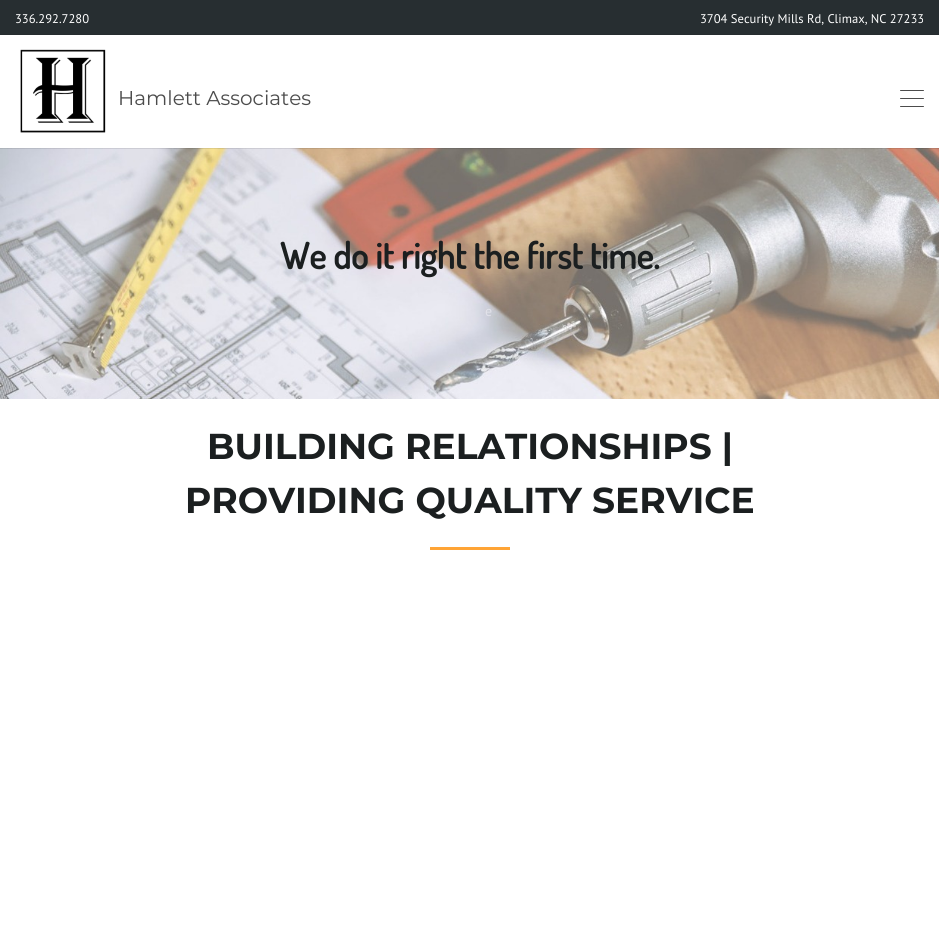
#include <cairo.h>
#include <math.h>
#include <stddef.h>


static void ink(cairo_t *ctx, unsigned color) {
    cairo_set_source_rgb(ctx, (color >> 16) / 255.0, (color >> 8 & 255) / 255.0, (color & 255) / 255.0);
}

static void round_path(cairo_t *ctx, double x, double y, double w, double h, double r) {
    cairo_new_sub_path(ctx);
    cairo_arc(ctx, x + w - r, y + h - r, r, 0, M_PI / 2);
    cairo_arc(ctx, x + r, y + h - r, r, M_PI / 2, M_PI);
    cairo_arc(ctx, x + r, y + r, r, M_PI, 1.5 * M_PI);
    cairo_arc(ctx, x + w - r, y + r, r, 1.5 * M_PI, 2 * M_PI);
    cairo_close_path(ctx);
}

static void paste(cairo_t *ctx, const char *path, double x, double y, double w, double h) {
    cairo_surface_t *image = cairo_image_surface_create_from_png(path);
    cairo_save(ctx);
    cairo_set_source_surface(ctx, image, x, y);
    cairo_rectangle(ctx, x, y, w, h);
    cairo_fill(ctx);
    cairo_restore(ctx);
    cairo_surface_destroy(image);
}

int main(void) {
    cairo_surface_t *surface = cairo_image_surface_create(CAIRO_FORMAT_RGB24, 939, 937);
    cairo_t *ctx = cairo_create(surface);
    cairo_font_options_t *options = cairo_font_options_create();
    cairo_font_options_set_hint_metrics(options, CAIRO_HINT_METRICS_OFF);
    cairo_font_options_set_hint_style(options, CAIRO_HINT_STYLE_NONE);
    cairo_set_font_options(ctx, options);
    cairo_set_miter_limit(ctx, 4);
    ink(ctx, 0xFFFFFF);
    cairo_paint(ctx);
    ink(ctx, 0x272E31);
    cairo_rectangle(ctx, 0, 0, 939, 34);
    cairo_fill(ctx);
    cairo_select_font_face(ctx, "PT Sans", CAIRO_FONT_SLANT_NORMAL, CAIRO_FONT_WEIGHT_NORMAL);
    cairo_set_font_size(ctx, 12.6);
    ink(ctx, 0xFFFFFF);
    cairo_move_to(ctx, 15, 23);
    cairo_show_text(ctx, "336.292.7280");
    cairo_move_to(ctx, 700, 23);
    cairo_show_text(ctx, "3704 Security Mills Rd, Climax, NC 27233");
    ink(ctx, 0x262C2F);
    cairo_rectangle(ctx, 0, 34, 939, 1);
    cairo_fill(ctx);
    paste(ctx, "media/2.png", 0, 148, 939, 251);
    cairo_set_source_rgba(ctx, 0.051, 0.055, 0.059, 0.05);
    cairo_rectangle(ctx, 0, 148, 939, 1);
    cairo_fill(ctx);
    cairo_rectangle(ctx, 0, 148, 939, 1);
    cairo_fill(ctx);
    paste(ctx, "media/1.png", 20, 49, 86, 84);
    cairo_select_font_face(ctx, "Montserrat", CAIRO_FONT_SLANT_NORMAL, CAIRO_FONT_WEIGHT_NORMAL);
    cairo_set_font_size(ctx, 20);
    ink(ctx, 0x4C4C4C);
    cairo_move_to(ctx, 118, 105);
    cairo_show_text(ctx, "Hamlett Associates");
    round_path(ctx, 900, 90, 24, 1, 0.5);
    cairo_fill(ctx);
    round_path(ctx, 900, 98, 24, 1, 0.5);
    cairo_fill(ctx);
    round_path(ctx, 900, 106, 24, 1, 0.5);
    cairo_fill(ctx);
    cairo_select_font_face(ctx, "Dosis", CAIRO_FONT_SLANT_NORMAL, CAIRO_FONT_WEIGHT_BOLD);
    cairo_set_font_size(ctx, 36);
    ink(ctx, 0x1B1F20);
    cairo_move_to(ctx, 280, 269);
    cairo_show_text(ctx, "We do it right the first time.");
    cairo_select_font_face(ctx, "PT Sans", CAIRO_FONT_SLANT_NORMAL, CAIRO_FONT_WEIGHT_NORMAL);
    cairo_set_font_size(ctx, 14);
    ink(ctx, 0xE1E1EA);
    cairo_move_to(ctx, 485, 316);
    cairo_show_text(ctx, "e");
    cairo_select_font_face(ctx, "Montserrat", CAIRO_FONT_SLANT_NORMAL, CAIRO_FONT_WEIGHT_BOLD);
    cairo_set_font_size(ctx, 36);
    ink(ctx, 0x1B1F20);
    cairo_move_to(ctx, 207, 459);
    cairo_show_text(ctx, "BUILDING RELATIONSHIPS |");
    cairo_move_to(ctx, 185, 513);
    cairo_show_text(ctx, "PROVIDING QUALITY SERVICE");
    ink(ctx, 0xFFA435);
    cairo_rectangle(ctx, 430, 547, 80, 3);
    cairo_fill(ctx);
    cairo_surface_write_to_png(surface, "image.png");
    cairo_font_options_destroy(options);
    cairo_destroy(ctx);
    cairo_surface_destroy(surface);
    return 0;
}
